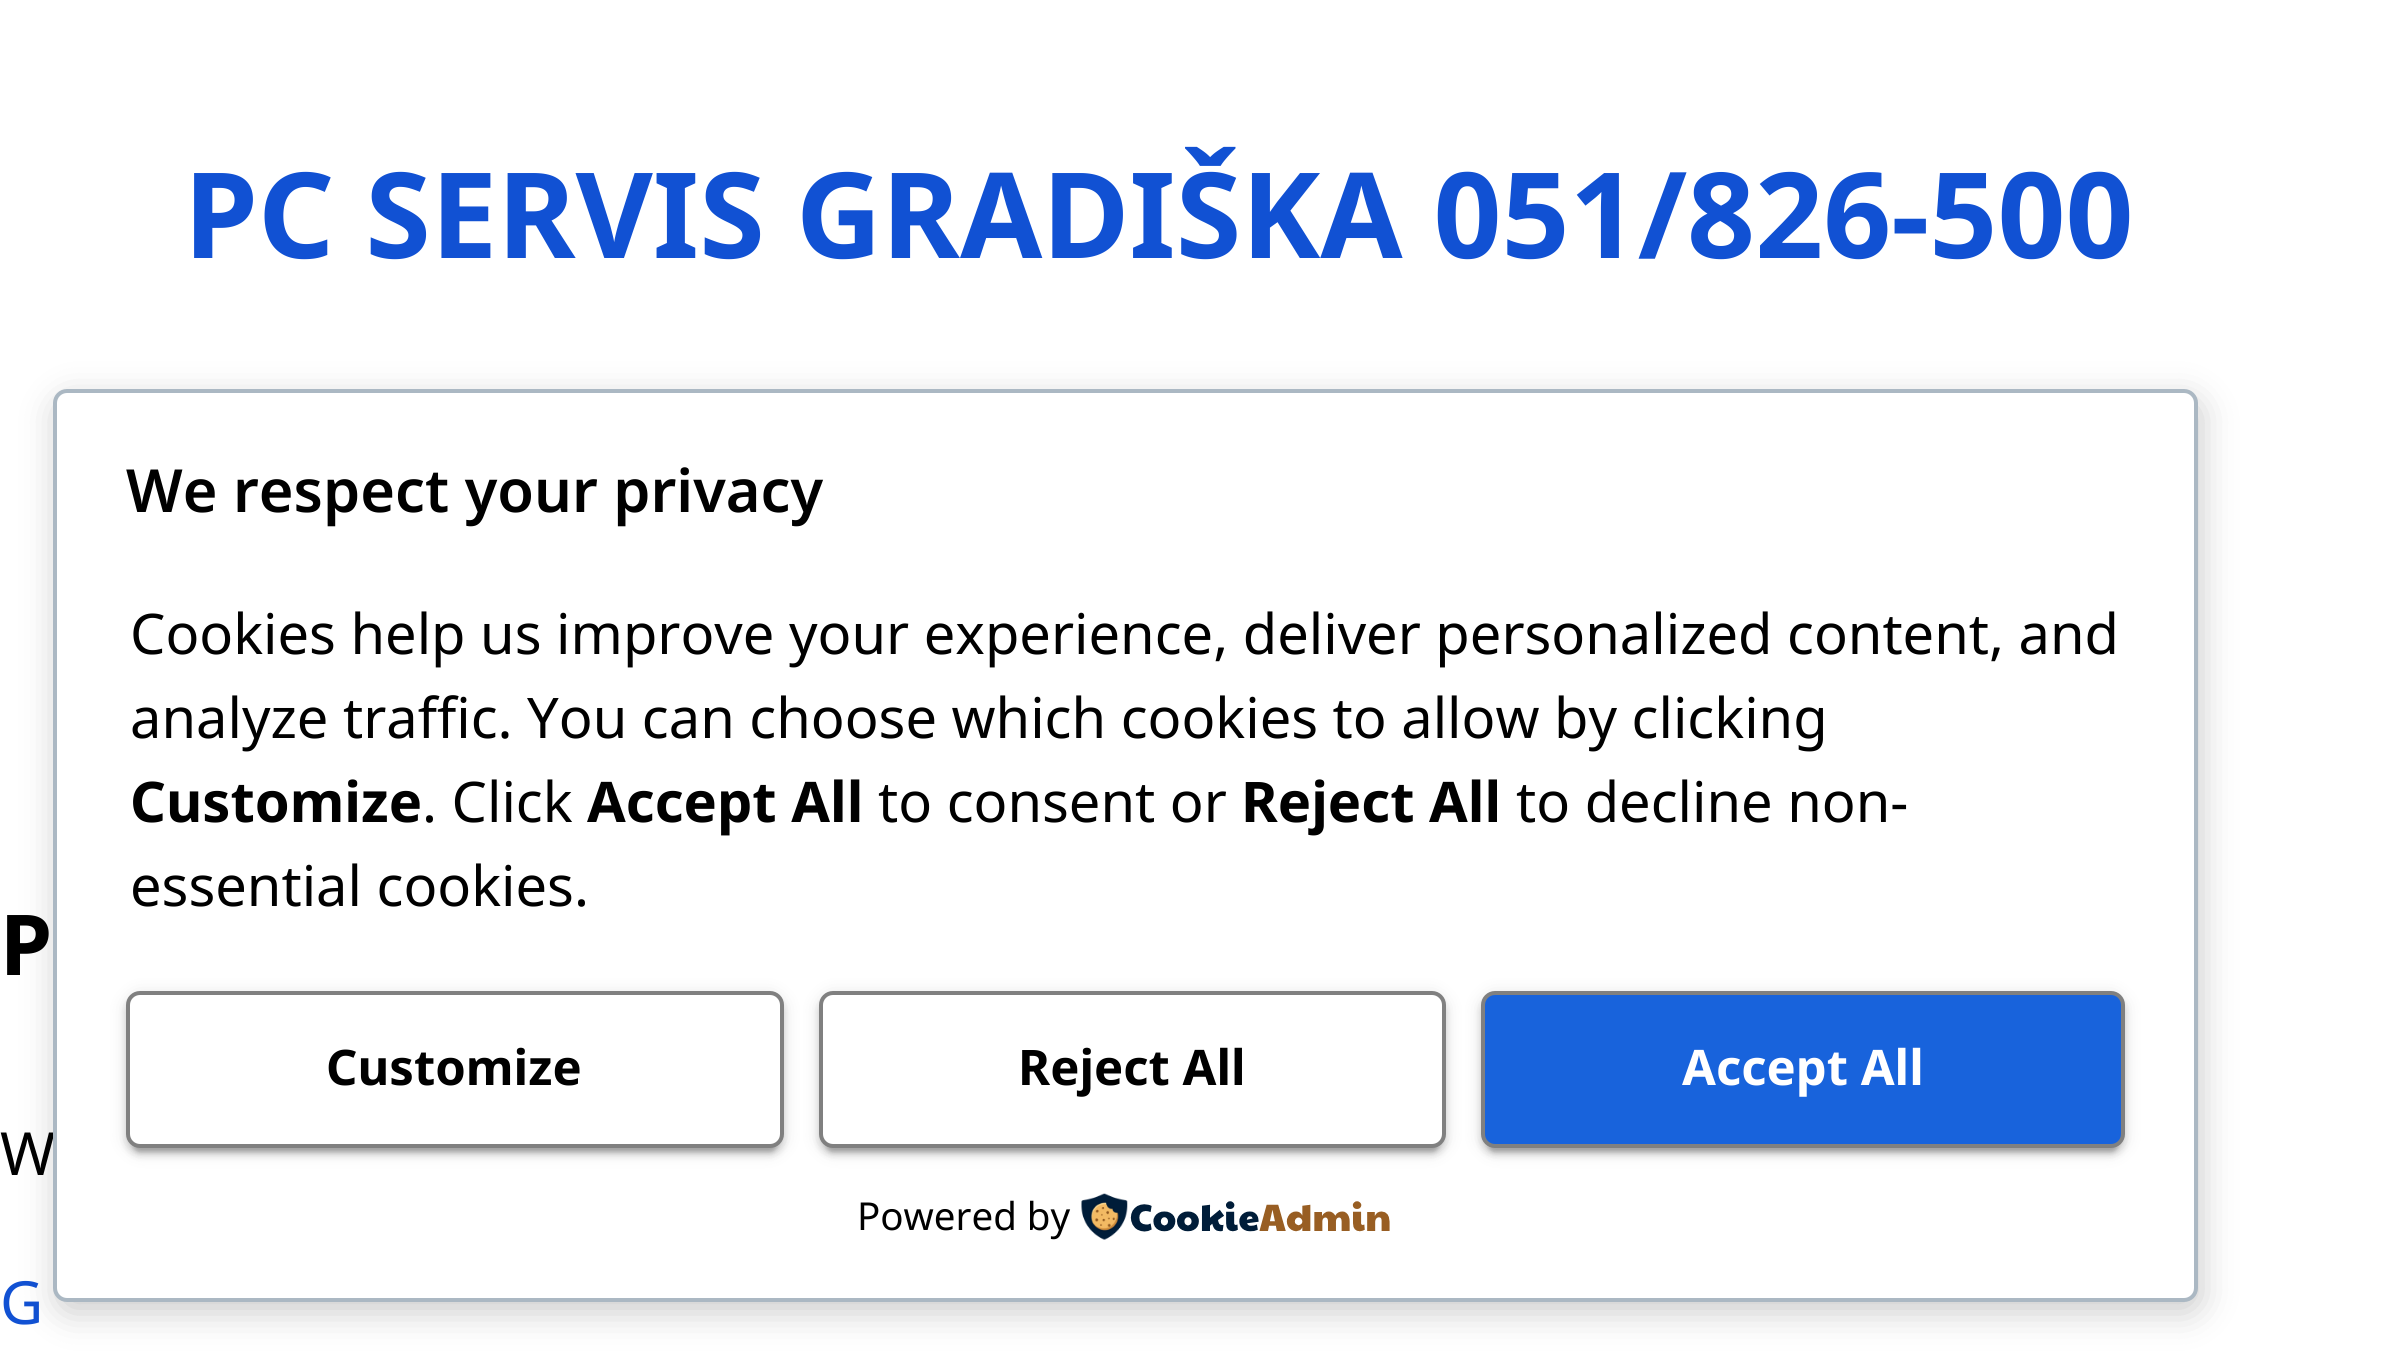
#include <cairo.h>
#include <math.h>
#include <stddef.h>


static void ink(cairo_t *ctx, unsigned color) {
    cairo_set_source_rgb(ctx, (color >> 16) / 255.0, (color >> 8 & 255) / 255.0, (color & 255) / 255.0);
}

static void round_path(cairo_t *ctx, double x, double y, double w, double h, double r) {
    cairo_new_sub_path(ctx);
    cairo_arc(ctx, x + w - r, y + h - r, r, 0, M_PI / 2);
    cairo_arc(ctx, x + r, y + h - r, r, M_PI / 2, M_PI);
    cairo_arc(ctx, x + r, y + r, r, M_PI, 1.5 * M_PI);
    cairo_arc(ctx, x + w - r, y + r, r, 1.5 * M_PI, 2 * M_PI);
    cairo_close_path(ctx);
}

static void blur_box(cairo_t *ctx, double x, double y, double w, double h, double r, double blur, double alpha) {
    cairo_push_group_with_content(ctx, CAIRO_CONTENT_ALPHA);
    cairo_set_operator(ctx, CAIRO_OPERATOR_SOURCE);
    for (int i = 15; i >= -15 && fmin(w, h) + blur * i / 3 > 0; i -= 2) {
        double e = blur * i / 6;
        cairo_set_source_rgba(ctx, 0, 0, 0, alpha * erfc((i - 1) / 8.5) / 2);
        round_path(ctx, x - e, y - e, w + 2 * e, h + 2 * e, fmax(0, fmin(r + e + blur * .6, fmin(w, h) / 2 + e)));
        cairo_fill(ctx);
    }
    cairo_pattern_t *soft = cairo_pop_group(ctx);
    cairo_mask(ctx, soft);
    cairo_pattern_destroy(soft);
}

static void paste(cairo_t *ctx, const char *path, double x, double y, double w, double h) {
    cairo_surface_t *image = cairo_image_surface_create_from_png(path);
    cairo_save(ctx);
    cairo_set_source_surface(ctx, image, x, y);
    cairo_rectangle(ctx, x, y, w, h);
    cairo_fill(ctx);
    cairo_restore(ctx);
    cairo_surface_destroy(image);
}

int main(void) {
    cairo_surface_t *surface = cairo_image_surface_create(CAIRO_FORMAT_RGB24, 2381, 1369);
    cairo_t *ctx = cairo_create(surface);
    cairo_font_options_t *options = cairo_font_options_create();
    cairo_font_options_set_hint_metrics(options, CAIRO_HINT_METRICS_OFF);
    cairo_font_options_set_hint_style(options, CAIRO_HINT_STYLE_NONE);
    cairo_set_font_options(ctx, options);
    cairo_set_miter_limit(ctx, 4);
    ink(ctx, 0xFFFFFF);
    cairo_paint(ctx);
    cairo_select_font_face(ctx, "Noto Sans", CAIRO_FONT_SLANT_NORMAL, CAIRO_FONT_WEIGHT_BOLD);
    cairo_set_font_size(ctx, 119);
    ink(ctx, 0x1151D3);
    cairo_move_to(ctx, 184, 258);
    cairo_show_text(ctx, "PC SERVIS GRADIŠKA 051/826-500");
    cairo_set_font_size(ctx, 84);
    ink(ctx, 0x000000);
    cairo_move_to(ctx, 0, 975);
    cairo_show_text(ctx, "P");
    cairo_select_font_face(ctx, "Noto Sans", CAIRO_FONT_SLANT_NORMAL, CAIRO_FONT_WEIGHT_NORMAL);
    cairo_set_font_size(ctx, 59.5);
    cairo_move_to(ctx, 0, 1175);
    cairo_show_text(ctx, "W");
    ink(ctx, 0x1151D3);
    cairo_move_to(ctx, 0, 1324);
    cairo_show_text(ctx, "G");
    ink(ctx, 0x000000);
    blur_box(ctx, 56, 399, 2146, 914, 14, 17.5, 0.2);
    ink(ctx, 0xFFFFFF);
    round_path(ctx, 55, 391, 2141, 909, 12);
    cairo_fill_preserve(ctx);
    ink(ctx, 0xABB8C3);
    cairo_set_line_width(ctx, 4);
    cairo_stroke(ctx);
    cairo_select_font_face(ctx, "Noto Sans SemiBold", CAIRO_FONT_SLANT_NORMAL, CAIRO_FONT_WEIGHT_NORMAL);
    ink(ctx, 0x000000);
    cairo_move_to(ctx, 126, 512);
    cairo_show_text(ctx, "We respect your privacy");
    cairo_select_font_face(ctx, "Noto Sans", CAIRO_FONT_SLANT_NORMAL, CAIRO_FONT_WEIGHT_NORMAL);
    cairo_set_font_size(ctx, 56);
    cairo_move_to(ctx, 130, 654);
    cairo_show_text(ctx, "Cookies help us improve your experience, deliver personalized content, and");
    cairo_move_to(ctx, 130, 738);
    cairo_show_text(ctx, "analyze traffic. You can choose which cookies to allow by clicking");
    cairo_select_font_face(ctx, "Noto Sans", CAIRO_FONT_SLANT_NORMAL, CAIRO_FONT_WEIGHT_BOLD);
    cairo_move_to(ctx, 130, 822);
    cairo_show_text(ctx, "Customize");
    cairo_select_font_face(ctx, "Noto Sans", CAIRO_FONT_SLANT_NORMAL, CAIRO_FONT_WEIGHT_NORMAL);
    cairo_move_to(ctx, 422, 822);
    cairo_show_text(ctx, ". Click");
    cairo_select_font_face(ctx, "Noto Sans", CAIRO_FONT_SLANT_NORMAL, CAIRO_FONT_WEIGHT_BOLD);
    cairo_move_to(ctx, 587, 822);
    cairo_show_text(ctx, "Accept All");
    cairo_select_font_face(ctx, "Noto Sans", CAIRO_FONT_SLANT_NORMAL, CAIRO_FONT_WEIGHT_NORMAL);
    cairo_move_to(ctx, 878, 822);
    cairo_show_text(ctx, "to consent or");
    cairo_select_font_face(ctx, "Noto Sans", CAIRO_FONT_SLANT_NORMAL, CAIRO_FONT_WEIGHT_BOLD);
    cairo_move_to(ctx, 1241, 822);
    cairo_show_text(ctx, "Reject All");
    cairo_select_font_face(ctx, "Noto Sans", CAIRO_FONT_SLANT_NORMAL, CAIRO_FONT_WEIGHT_NORMAL);
    cairo_move_to(ctx, 1516, 822);
    cairo_show_text(ctx, "to decline non-");
    cairo_move_to(ctx, 130, 906);
    cairo_show_text(ctx, "essential cookies.");
    ink(ctx, 0x000000);
    blur_box(ctx, 126, 994, 658, 158, 14, 9, 0.12);
    blur_box(ctx, 133, 1008, 644, 144, 7, 2, 0.2);
    blur_box(ctx, 126, 998, 658, 157, 14, 3.5, 0.14);
    ink(ctx, 0xFFFFFF);
    round_path(ctx, 128, 993, 654, 153, 12);
    cairo_fill_preserve(ctx);
    ink(ctx, 0x808080);
    cairo_stroke(ctx);
    cairo_select_font_face(ctx, "Noto Sans", CAIRO_FONT_SLANT_NORMAL, CAIRO_FONT_WEIGHT_BOLD);
    cairo_set_font_size(ctx, 49);
    ink(ctx, 0x000000);
    cairo_move_to(ctx, 326, 1085);
    cairo_show_text(ctx, "Customize");
    ink(ctx, 0x000000);
    blur_box(ctx, 819, 994, 627, 158, 14, 9, 0.12);
    blur_box(ctx, 826, 1008, 613, 144, 7, 2, 0.2);
    blur_box(ctx, 819, 998, 627, 157, 14, 3.5, 0.14);
    ink(ctx, 0xFFFFFF);
    round_path(ctx, 821, 993, 623, 153, 12);
    cairo_fill_preserve(ctx);
    ink(ctx, 0x808080);
    cairo_stroke(ctx);
    ink(ctx, 0x000000);
    cairo_move_to(ctx, 1018, 1085);
    cairo_show_text(ctx, "Reject All");
    ink(ctx, 0x000000);
    blur_box(ctx, 1481, 994, 644, 158, 14, 9, 0.12);
    blur_box(ctx, 1488, 1008, 630, 144, 7, 2, 0.2);
    blur_box(ctx, 1481, 998, 644, 157, 14, 3.5, 0.14);
    ink(ctx, 0x1863DC);
    round_path(ctx, 1483, 993, 640, 153, 12);
    cairo_fill_preserve(ctx);
    ink(ctx, 0x808080);
    cairo_stroke(ctx);
    ink(ctx, 0xFFFFFF);
    cairo_move_to(ctx, 1682, 1085);
    cairo_show_text(ctx, "Accept All");
    cairo_select_font_face(ctx, "Noto Sans", CAIRO_FONT_SLANT_NORMAL, CAIRO_FONT_WEIGHT_NORMAL);
    cairo_set_font_size(ctx, 38.5);
    ink(ctx, 0x000000);
    cairo_move_to(ctx, 857, 1230);
    cairo_show_text(ctx, "Powered by");
    paste(ctx, "media/1.png", 1081, 1193, 309, 47);
    cairo_surface_write_to_png(surface, "image.png");
    cairo_font_options_destroy(options);
    cairo_destroy(ctx);
    cairo_surface_destroy(surface);
    return 0;
}
